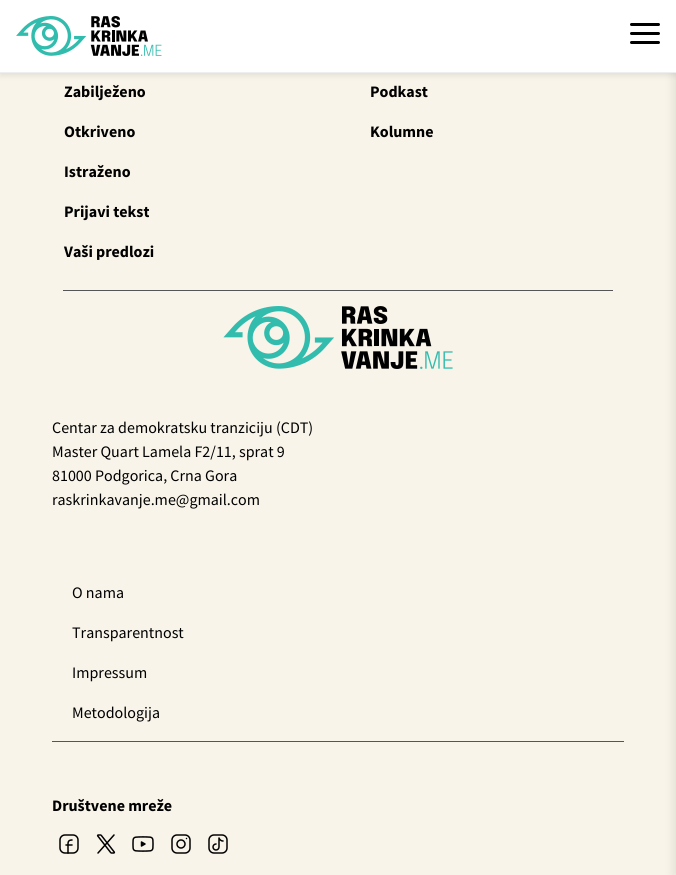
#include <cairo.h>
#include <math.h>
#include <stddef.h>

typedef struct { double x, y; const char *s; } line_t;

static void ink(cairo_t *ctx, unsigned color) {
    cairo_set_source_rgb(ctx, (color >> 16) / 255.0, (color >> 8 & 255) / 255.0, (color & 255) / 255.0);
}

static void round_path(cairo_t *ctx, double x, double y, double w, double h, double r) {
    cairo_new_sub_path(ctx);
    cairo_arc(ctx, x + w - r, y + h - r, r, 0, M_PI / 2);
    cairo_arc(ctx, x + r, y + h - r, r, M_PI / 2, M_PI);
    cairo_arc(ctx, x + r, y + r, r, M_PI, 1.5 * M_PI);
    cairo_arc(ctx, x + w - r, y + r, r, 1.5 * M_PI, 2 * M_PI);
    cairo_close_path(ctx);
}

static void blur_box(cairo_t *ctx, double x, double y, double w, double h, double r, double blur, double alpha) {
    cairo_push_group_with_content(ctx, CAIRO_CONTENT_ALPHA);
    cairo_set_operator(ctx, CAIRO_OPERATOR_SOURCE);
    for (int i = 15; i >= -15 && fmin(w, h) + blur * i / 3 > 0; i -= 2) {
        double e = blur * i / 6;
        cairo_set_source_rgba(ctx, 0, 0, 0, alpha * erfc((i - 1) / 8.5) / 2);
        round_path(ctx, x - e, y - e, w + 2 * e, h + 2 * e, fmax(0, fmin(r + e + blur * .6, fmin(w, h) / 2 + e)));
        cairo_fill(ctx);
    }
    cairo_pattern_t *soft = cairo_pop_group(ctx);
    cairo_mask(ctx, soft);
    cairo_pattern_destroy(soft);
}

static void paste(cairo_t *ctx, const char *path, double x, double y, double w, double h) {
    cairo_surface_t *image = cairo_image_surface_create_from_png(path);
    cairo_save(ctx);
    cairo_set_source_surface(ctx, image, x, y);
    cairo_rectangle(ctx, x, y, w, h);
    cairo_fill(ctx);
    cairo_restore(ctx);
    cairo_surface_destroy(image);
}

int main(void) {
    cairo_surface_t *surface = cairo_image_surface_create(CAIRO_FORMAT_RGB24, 676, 875);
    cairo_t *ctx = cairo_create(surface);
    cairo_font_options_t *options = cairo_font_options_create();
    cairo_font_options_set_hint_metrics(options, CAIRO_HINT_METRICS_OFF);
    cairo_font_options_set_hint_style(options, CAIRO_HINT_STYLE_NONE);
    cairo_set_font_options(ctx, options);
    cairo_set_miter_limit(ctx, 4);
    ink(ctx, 0xF8F4E9);
    cairo_paint(ctx);
    ink(ctx, 0x000000);
    blur_box(ctx, 0, 2, 676, 73, 0, 3, 0.1);
    blur_box(ctx, 674, 0, 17, 875, 0, 5, 0.1);
    ink(ctx, 0xFFFFFF);
    cairo_rectangle(ctx, 0, 0, 676, 72);
    cairo_fill(ctx);
    ink(ctx, 0xEEEEEE);
    cairo_rectangle(ctx, 0, 72, 676, 1);
    cairo_fill(ctx);
    paste(ctx, "media/1.png", 16, 16, 146, 40);
    ink(ctx, 0x000000);
    round_path(ctx, 630, 23, 30, 3, 1.5);
    cairo_fill(ctx);
    round_path(ctx, 630, 32, 30, 3, 1.5);
    cairo_fill(ctx);
    round_path(ctx, 630, 41, 30, 3, 1.5);
    cairo_fill(ctx);
    cairo_select_font_face(ctx, "Source Sans Pro", CAIRO_FONT_SLANT_NORMAL, CAIRO_FONT_WEIGHT_BOLD);
    cairo_set_font_size(ctx, 16);
    {
        static const line_t items[] = {
            {64, 97, "Zabilježeno"},
            {64, 137, "Otkriveno"},
            {64, 177, "Istraženo"},
            {64, 217, "Prijavi tekst"},
            {64, 257, "Vaši predlozi"},
            {370, 97, "Podkast"},
            {370, 137, "Kolumne"},
        };
        for (size_t i = 0; i < sizeof items / sizeof *items; i++) {
            cairo_move_to(ctx, items[i].x, items[i].y);
            cairo_show_text(ctx, items[i].s);
        }
    }
    ink(ctx, 0x555558);
    cairo_rectangle(ctx, 63, 290, 550, 1);
    cairo_fill(ctx);
    paste(ctx, "media/2.png", 223, 306, 230, 63);
    cairo_select_font_face(ctx, "Source Sans Pro", CAIRO_FONT_SLANT_NORMAL, CAIRO_FONT_WEIGHT_NORMAL);
    ink(ctx, 0x000000);
    {
        static const line_t items[] = {
            {52, 433, "Centar za demokratsku tranziciju (CDT)"},
            {52, 457, "Master Quart Lamela F2/11, sprat 9"},
            {52, 481, "81000 Podgorica, Crna Gora"},
            {52, 505, "raskrinkavanje.me@gmail.com"},
            {72, 598, "O nama"},
            {72, 638, "Transparentnost"},
            {72, 678, "Impressum"},
            {72, 718, "Metodologija"},
        };
        for (size_t i = 0; i < sizeof items / sizeof *items; i++) {
            cairo_move_to(ctx, items[i].x, items[i].y);
            cairo_show_text(ctx, items[i].s);
        }
    }
    ink(ctx, 0x555558);
    cairo_rectangle(ctx, 52, 741, 572, 1);
    cairo_fill(ctx);
    cairo_select_font_face(ctx, "Source Sans Pro", CAIRO_FONT_SLANT_NORMAL, CAIRO_FONT_WEIGHT_BOLD);
    ink(ctx, 0x000000);
    cairo_move_to(ctx, 52, 811);
    cairo_show_text(ctx, "Društvene mreže");
    paste(ctx, "media/3.png", 59, 834, 20, 20);
    paste(ctx, "media/4.png", 96, 834, 20, 20);
    paste(ctx, "media/5.png", 132, 836, 22, 16);
    paste(ctx, "media/6.png", 171, 834, 20, 20);
    paste(ctx, "media/7.png", 208, 834, 20, 20);
    cairo_surface_write_to_png(surface, "image.png");
    cairo_font_options_destroy(options);
    cairo_destroy(ctx);
    cairo_surface_destroy(surface);
    return 0;
}
